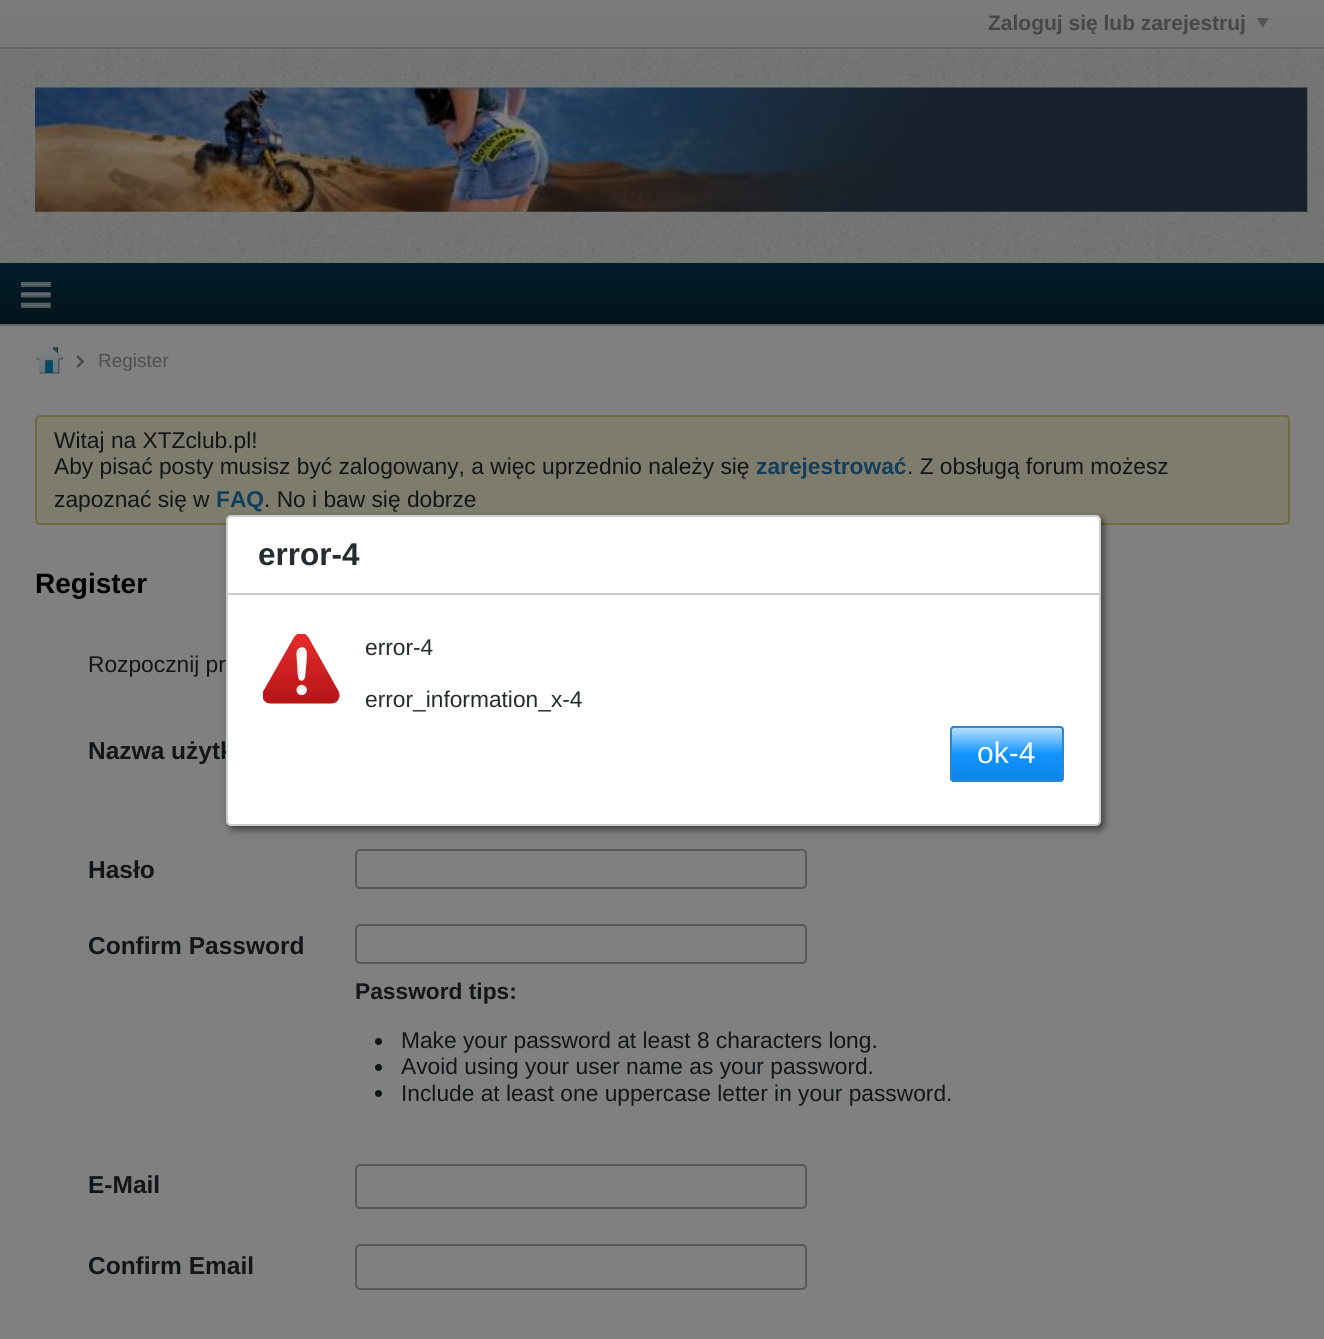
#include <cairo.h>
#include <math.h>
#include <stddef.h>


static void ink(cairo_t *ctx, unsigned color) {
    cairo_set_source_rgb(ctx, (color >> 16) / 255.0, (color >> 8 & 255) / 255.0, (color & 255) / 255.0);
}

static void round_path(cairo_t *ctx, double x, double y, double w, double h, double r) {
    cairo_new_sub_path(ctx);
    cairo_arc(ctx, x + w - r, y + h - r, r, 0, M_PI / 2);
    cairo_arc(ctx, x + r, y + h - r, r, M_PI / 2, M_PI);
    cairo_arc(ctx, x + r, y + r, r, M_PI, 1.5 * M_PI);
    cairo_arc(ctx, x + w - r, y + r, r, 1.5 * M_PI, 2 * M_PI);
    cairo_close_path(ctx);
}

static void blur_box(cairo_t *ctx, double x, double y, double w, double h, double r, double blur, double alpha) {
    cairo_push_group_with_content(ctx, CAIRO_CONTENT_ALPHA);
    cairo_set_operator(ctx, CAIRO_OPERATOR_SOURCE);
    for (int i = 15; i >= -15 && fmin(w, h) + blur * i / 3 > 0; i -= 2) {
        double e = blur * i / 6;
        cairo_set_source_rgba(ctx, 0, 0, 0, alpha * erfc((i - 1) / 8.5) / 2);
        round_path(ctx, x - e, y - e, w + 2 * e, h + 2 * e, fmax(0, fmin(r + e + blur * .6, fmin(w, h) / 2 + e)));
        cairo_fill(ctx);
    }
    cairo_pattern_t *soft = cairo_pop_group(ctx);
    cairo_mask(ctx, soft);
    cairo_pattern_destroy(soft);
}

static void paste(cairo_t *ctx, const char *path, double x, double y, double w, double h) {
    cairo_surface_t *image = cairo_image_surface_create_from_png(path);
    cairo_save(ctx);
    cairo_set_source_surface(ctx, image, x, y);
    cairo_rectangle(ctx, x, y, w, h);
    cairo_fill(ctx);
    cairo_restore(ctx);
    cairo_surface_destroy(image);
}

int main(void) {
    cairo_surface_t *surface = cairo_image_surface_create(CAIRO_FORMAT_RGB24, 1324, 1339);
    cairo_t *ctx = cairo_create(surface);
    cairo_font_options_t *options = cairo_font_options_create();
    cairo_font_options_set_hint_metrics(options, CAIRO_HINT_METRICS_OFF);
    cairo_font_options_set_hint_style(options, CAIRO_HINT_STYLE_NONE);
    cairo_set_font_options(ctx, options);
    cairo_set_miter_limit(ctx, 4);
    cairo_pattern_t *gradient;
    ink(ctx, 0x757676);
    cairo_paint(ctx);
    gradient = cairo_pattern_create_linear(662, 0, 662, 49);
    cairo_pattern_add_color_stop_rgba(gradient, 0, 0.486, 0.486, 0.486, 1);
    cairo_pattern_add_color_stop_rgba(gradient, 1, 0.471, 0.467, 0.467, 1);
    cairo_set_source(ctx, gradient);
    cairo_pattern_destroy(gradient);
    cairo_rectangle(ctx, 0, 0, 1324, 46);
    cairo_fill(ctx);
    cairo_select_font_face(ctx, "Liberation Sans", CAIRO_FONT_SLANT_NORMAL, CAIRO_FONT_WEIGHT_BOLD);
    cairo_set_font_size(ctx, 21);
    ink(ctx, 0x474747);
    cairo_move_to(ctx, 988, 30);
    cairo_show_text(ctx, "Zaloguj się lub zarejestruj");
    paste(ctx, "media/1.png", 1257, 18, 12, 10);
    ink(ctx, 0x7D7D7D);
    cairo_rectangle(ctx, 0, 46, 1324, 4);
    cairo_fill(ctx);
    ink(ctx, 0x646465);
    cairo_rectangle(ctx, 0, 47, 1324, 2);
    cairo_fill(ctx);
    paste(ctx, "media/2.png", 0, 50, 1324, 213);
    paste(ctx, "media/3.png", 35, 87, 1273, 125);
    gradient = cairo_pattern_create_linear(662, 262, 662, 324);
    cairo_pattern_add_color_stop_rgba(gradient, 0, 0.004, 0.114, 0.165, 1);
    cairo_pattern_add_color_stop_rgba(gradient, 1, 0.012, 0.078, 0.102, 1);
    cairo_set_source(ctx, gradient);
    cairo_pattern_destroy(gradient);
    cairo_rectangle(ctx, 0, 263, 1324, 61);
    cairo_fill(ctx);
    ink(ctx, 0x626464);
    cairo_rectangle(ctx, 0, 324, 1324, 2);
    cairo_fill(ctx);
    paste(ctx, "media/4.png", 21, 282, 30, 26);
    ink(ctx, 0x808080);
    cairo_rectangle(ctx, 0, 326, 1324, 1013);
    cairo_fill(ctx);
    paste(ctx, "media/5.png", 35, 347, 28, 27);
    paste(ctx, "media/6.png", 76, 355, 8, 13);
    cairo_select_font_face(ctx, "Liberation Sans", CAIRO_FONT_SLANT_NORMAL, CAIRO_FONT_WEIGHT_NORMAL);
    cairo_set_font_size(ctx, 19);
    ink(ctx, 0x4F4F4F);
    cairo_move_to(ctx, 98, 367);
    cairo_show_text(ctx, "Register");
    ink(ctx, 0x7E7C6C);
    round_path(ctx, 36, 416, 1253, 108, 4);
    cairo_fill_preserve(ctx);
    ink(ctx, 0x716A3F);
    cairo_stroke(ctx);
    cairo_set_font_size(ctx, 22.75);
    ink(ctx, 0x131618);
    cairo_move_to(ctx, 54, 448);
    cairo_show_text(ctx, "Witaj na XTZclub.pl!");
    cairo_move_to(ctx, 54, 474);
    cairo_show_text(ctx, "Aby pisać posty musisz być zalogowany, a więc uprzednio należy się");
    cairo_select_font_face(ctx, "Liberation Sans", CAIRO_FONT_SLANT_NORMAL, CAIRO_FONT_WEIGHT_BOLD);
    ink(ctx, 0x123D5B);
    cairo_move_to(ctx, 756, 474);
    cairo_show_text(ctx, "zarejestrować");
    cairo_select_font_face(ctx, "Liberation Sans", CAIRO_FONT_SLANT_NORMAL, CAIRO_FONT_WEIGHT_NORMAL);
    ink(ctx, 0x131618);
    cairo_move_to(ctx, 907, 474);
    cairo_show_text(ctx, ". Z obsługą forum możesz");
    cairo_move_to(ctx, 54, 507);
    cairo_show_text(ctx, "zapoznać się w");
    cairo_select_font_face(ctx, "Liberation Sans", CAIRO_FONT_SLANT_NORMAL, CAIRO_FONT_WEIGHT_BOLD);
    ink(ctx, 0x123D5B);
    cairo_move_to(ctx, 216, 507);
    cairo_show_text(ctx, "FAQ");
    cairo_select_font_face(ctx, "Liberation Sans", CAIRO_FONT_SLANT_NORMAL, CAIRO_FONT_WEIGHT_NORMAL);
    ink(ctx, 0x131618);
    cairo_move_to(ctx, 264, 507);
    cairo_show_text(ctx, ". No i baw się dobrze");
    cairo_select_font_face(ctx, "Liberation Sans", CAIRO_FONT_SLANT_NORMAL, CAIRO_FONT_WEIGHT_BOLD);
    cairo_set_font_size(ctx, 28);
    ink(ctx, 0x000000);
    cairo_move_to(ctx, 35, 593);
    cairo_show_text(ctx, "Register");
    cairo_select_font_face(ctx, "Liberation Sans", CAIRO_FONT_SLANT_NORMAL, CAIRO_FONT_WEIGHT_NORMAL);
    cairo_set_font_size(ctx, 22.75);
    ink(ctx, 0x131618);
    cairo_move_to(ctx, 88, 672);
    cairo_show_text(ctx, "Rozpocznij pr");
    cairo_select_font_face(ctx, "Liberation Sans", CAIRO_FONT_SLANT_NORMAL, CAIRO_FONT_WEIGHT_BOLD);
    cairo_set_font_size(ctx, 24.5);
    cairo_move_to(ctx, 88, 759);
    cairo_show_text(ctx, "Nazwa użytk");
    cairo_move_to(ctx, 88, 878);
    cairo_show_text(ctx, "Hasło");
    round_path(ctx, 356, 850, 450, 38, 4);
    ink(ctx, 0x575A5B);
    cairo_stroke(ctx);
    ink(ctx, 0x131618);
    cairo_move_to(ctx, 88, 954);
    cairo_show_text(ctx, "Confirm Password");
    round_path(ctx, 356, 925, 450, 38, 4);
    ink(ctx, 0x575A5B);
    cairo_stroke(ctx);
    cairo_set_font_size(ctx, 22.75);
    ink(ctx, 0x131618);
    cairo_move_to(ctx, 355, 999);
    cairo_show_text(ctx, "Password tips:");
    cairo_new_path(ctx);
    cairo_arc(ctx, 378.5, 1041.5, 3.5, 0, 2 * M_PI);
    cairo_fill(ctx);
    cairo_select_font_face(ctx, "Liberation Sans", CAIRO_FONT_SLANT_NORMAL, CAIRO_FONT_WEIGHT_NORMAL);
    cairo_move_to(ctx, 401, 1048);
    cairo_show_text(ctx, "Make your password at least 8 characters long.");
    cairo_new_path(ctx);
    cairo_arc(ctx, 378.5, 1067.5, 3.5, 0, 2 * M_PI);
    cairo_fill(ctx);
    cairo_move_to(ctx, 401, 1074);
    cairo_show_text(ctx, "Avoid using your user name as your password.");
    cairo_new_path(ctx);
    cairo_arc(ctx, 378.5, 1093.5, 3.5, 0, 2 * M_PI);
    cairo_fill(ctx);
    cairo_move_to(ctx, 401, 1101);
    cairo_show_text(ctx, "Include at least one uppercase letter in your password.");
    cairo_select_font_face(ctx, "Liberation Sans", CAIRO_FONT_SLANT_NORMAL, CAIRO_FONT_WEIGHT_BOLD);
    cairo_set_font_size(ctx, 24.5);
    cairo_move_to(ctx, 88, 1193);
    cairo_show_text(ctx, "E-Mail");
    round_path(ctx, 356, 1165, 450, 43, 4);
    ink(ctx, 0x575A5B);
    cairo_stroke(ctx);
    ink(ctx, 0x131618);
    cairo_move_to(ctx, 88, 1274);
    cairo_show_text(ctx, "Confirm Email");
    round_path(ctx, 356, 1245, 450, 44, 4);
    ink(ctx, 0x575A5B);
    cairo_stroke(ctx);
    ink(ctx, 0x000000);
    blur_box(ctx, 229, 518, 875, 312, 5, 3.5, 0.5);
    ink(ctx, 0xFFFFFF);
    round_path(ctx, 227, 516, 873, 309, 4);
    cairo_fill_preserve(ctx);
    ink(ctx, 0xCACED2);
    cairo_stroke(ctx);
    cairo_rectangle(ctx, 228, 593, 871, 2);
    cairo_fill(ctx);
    cairo_set_font_size(ctx, 31.5);
    ink(ctx, 0x252C2F);
    cairo_move_to(ctx, 258, 565);
    cairo_show_text(ctx, "error-4");
    paste(ctx, "media/7.png", 263, 634, 77, 70);
    cairo_select_font_face(ctx, "Liberation Sans", CAIRO_FONT_SLANT_NORMAL, CAIRO_FONT_WEIGHT_NORMAL);
    cairo_set_font_size(ctx, 22.75);
    cairo_move_to(ctx, 365, 655);
    cairo_show_text(ctx, "error-4");
    cairo_move_to(ctx, 365, 707);
    cairo_show_text(ctx, "error_information_x-4");
    ink(ctx, 0x0F93FF);
    round_path(ctx, 950, 726, 114, 56, 4);
    cairo_fill(ctx);
    cairo_save(ctx);
    round_path(ctx, 950, 726, 114, 56, 4);
    cairo_clip(ctx);
    gradient = cairo_pattern_create_linear(1007, 781, 1007, 728);
    cairo_pattern_add_color_stop_rgba(gradient, 0, 0, 0, 0, 0.1);
    cairo_pattern_add_color_stop_rgba(gradient, 0.5, 0, 0, 0, 0);
    cairo_pattern_add_color_stop_rgba(gradient, 0.5, 1, 1, 1, 0);
    cairo_pattern_add_color_stop_rgba(gradient, 1, 1, 1, 1, 0.7);
    cairo_set_source(ctx, gradient);
    cairo_pattern_destroy(gradient);
    cairo_rectangle(ctx, 950, 728, 114, 53);
    cairo_fill(ctx);
    cairo_restore(ctx);
    round_path(ctx, 951, 727, 112, 54, 3);
    ink(ctx, 0x2989CC);
    cairo_stroke(ctx);
    cairo_set_font_size(ctx, 30);
    ink(ctx, 0xFFFFFF);
    cairo_move_to(ctx, 977, 763);
    cairo_show_text(ctx, "ok-4");
    cairo_surface_write_to_png(surface, "image.png");
    cairo_font_options_destroy(options);
    cairo_destroy(ctx);
    cairo_surface_destroy(surface);
    return 0;
}
